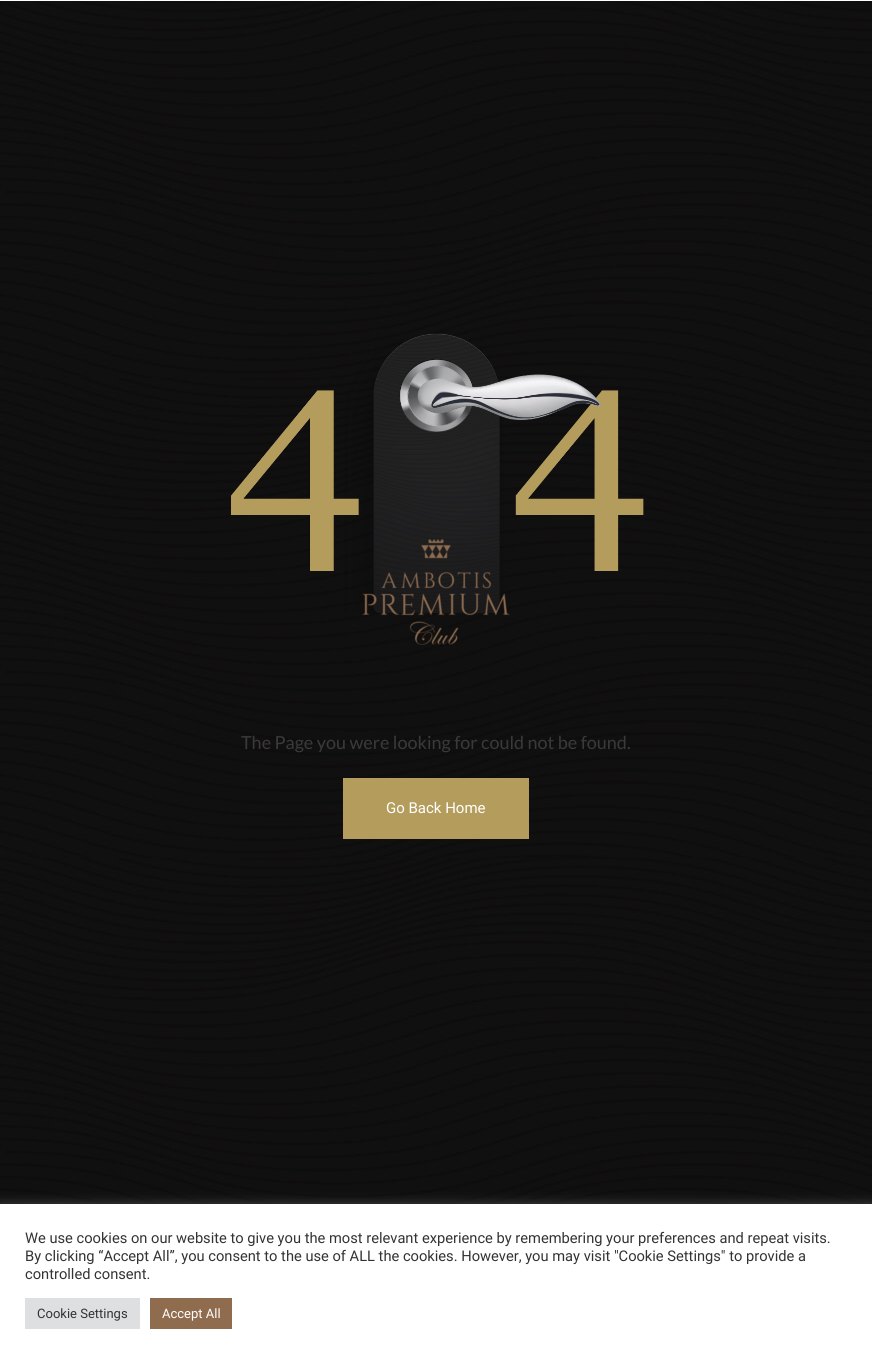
#include <cairo.h>
#include <math.h>
#include <stddef.h>

typedef struct { double x, y; const char *s; } line_t;

static void ink(cairo_t *ctx, unsigned color) {
    cairo_set_source_rgb(ctx, (color >> 16) / 255.0, (color >> 8 & 255) / 255.0, (color & 255) / 255.0);
}

static void round_path(cairo_t *ctx, double x, double y, double w, double h, double r) {
    cairo_new_sub_path(ctx);
    cairo_arc(ctx, x + w - r, y + h - r, r, 0, M_PI / 2);
    cairo_arc(ctx, x + r, y + h - r, r, M_PI / 2, M_PI);
    cairo_arc(ctx, x + r, y + r, r, M_PI, 1.5 * M_PI);
    cairo_arc(ctx, x + w - r, y + r, r, 1.5 * M_PI, 2 * M_PI);
    cairo_close_path(ctx);
}

static void blur_box(cairo_t *ctx, double x, double y, double w, double h, double r, double blur, double alpha) {
    cairo_push_group_with_content(ctx, CAIRO_CONTENT_ALPHA);
    cairo_set_operator(ctx, CAIRO_OPERATOR_SOURCE);
    for (int i = 15; i >= -15 && fmin(w, h) + blur * i / 3 > 0; i -= 2) {
        double e = blur * i / 6;
        cairo_set_source_rgba(ctx, 0, 0, 0, alpha * erfc((i - 1) / 8.5) / 2);
        round_path(ctx, x - e, y - e, w + 2 * e, h + 2 * e, fmax(0, fmin(r + e + blur * .6, fmin(w, h) / 2 + e)));
        cairo_fill(ctx);
    }
    cairo_pattern_t *soft = cairo_pop_group(ctx);
    cairo_mask(ctx, soft);
    cairo_pattern_destroy(soft);
}

static void paste(cairo_t *ctx, const char *path, double x, double y, double w, double h) {
    cairo_surface_t *image = cairo_image_surface_create_from_png(path);
    cairo_save(ctx);
    cairo_set_source_surface(ctx, image, x, y);
    cairo_rectangle(ctx, x, y, w, h);
    cairo_fill(ctx);
    cairo_restore(ctx);
    cairo_surface_destroy(image);
}

int main(void) {
    cairo_surface_t *surface = cairo_image_surface_create(CAIRO_FORMAT_RGB24, 872, 1359);
    cairo_t *ctx = cairo_create(surface);
    cairo_font_options_t *options = cairo_font_options_create();
    cairo_font_options_set_hint_metrics(options, CAIRO_HINT_METRICS_OFF);
    cairo_font_options_set_hint_style(options, CAIRO_HINT_STYLE_NONE);
    cairo_set_font_options(ctx, options);
    cairo_set_miter_limit(ctx, 4);
    ink(ctx, 0xFFFFFF);
    cairo_paint(ctx);
    paste(ctx, "media/1.png", 0, 1, 872, 1203);
    paste(ctx, "media/2.png", 231, 333, 413, 280);
    paste(ctx, "media/3.png", 362, 539, 148, 106);
    cairo_select_font_face(ctx, "Lato", CAIRO_FONT_SLANT_NORMAL, CAIRO_FONT_WEIGHT_NORMAL);
    cairo_set_font_size(ctx, 18);
    ink(ctx, 0x3A3A3A);
    cairo_move_to(ctx, 241, 749);
    cairo_show_text(ctx, "The Page you were looking for could not be found.");
    ink(ctx, 0xB49C5C);
    cairo_rectangle(ctx, 343, 778, 186, 61);
    cairo_fill(ctx);
    cairo_select_font_face(ctx, "Roboto", CAIRO_FONT_SLANT_NORMAL, CAIRO_FONT_WEIGHT_NORMAL);
    cairo_set_font_size(ctx, 15);
    ink(ctx, 0xFFFFFF);
    cairo_move_to(ctx, 386, 813);
    cairo_show_text(ctx, "Go Back Home");
    ink(ctx, 0xACABAB);
    blur_box(ctx, 0, 1203, 872, 155, 0, 5, 0.3);
    ink(ctx, 0xFFFFFF);
    cairo_rectangle(ctx, 0, 1204, 872, 155);
    cairo_fill(ctx);
    cairo_set_font_size(ctx, 14.67);
    ink(ctx, 0x333333);
    {
        static const line_t items[] = {
            {25, 1243, "We use cookies on our website to give you the most relevant experience by remembering your preferences and repeat visits."},
            {25, 1261, "By clicking “Accept All”, you consent to the use of ALL the cookies. However, you may visit \"Cookie Settings\" to provide a"},
            {25, 1279, "controlled consent."},
        };
        for (size_t i = 0; i < sizeof items / sizeof *items; i++) {
            cairo_move_to(ctx, items[i].x, items[i].y);
            cairo_show_text(ctx, items[i].s);
        }
    }
    ink(ctx, 0xDEDFE0);
    cairo_rectangle(ctx, 25, 1298, 115, 31);
    cairo_fill(ctx);
    cairo_set_font_size(ctx, 13);
    ink(ctx, 0x333333);
    cairo_move_to(ctx, 37, 1318);
    cairo_show_text(ctx, "Cookie Settings");
    ink(ctx, 0x906C4E);
    cairo_rectangle(ctx, 150, 1298, 82, 31);
    cairo_fill(ctx);
    ink(ctx, 0xFFFFFF);
    cairo_move_to(ctx, 162, 1318);
    cairo_show_text(ctx, "Accept All");
    cairo_surface_write_to_png(surface, "image.png");
    cairo_font_options_destroy(options);
    cairo_destroy(ctx);
    cairo_surface_destroy(surface);
    return 0;
}
